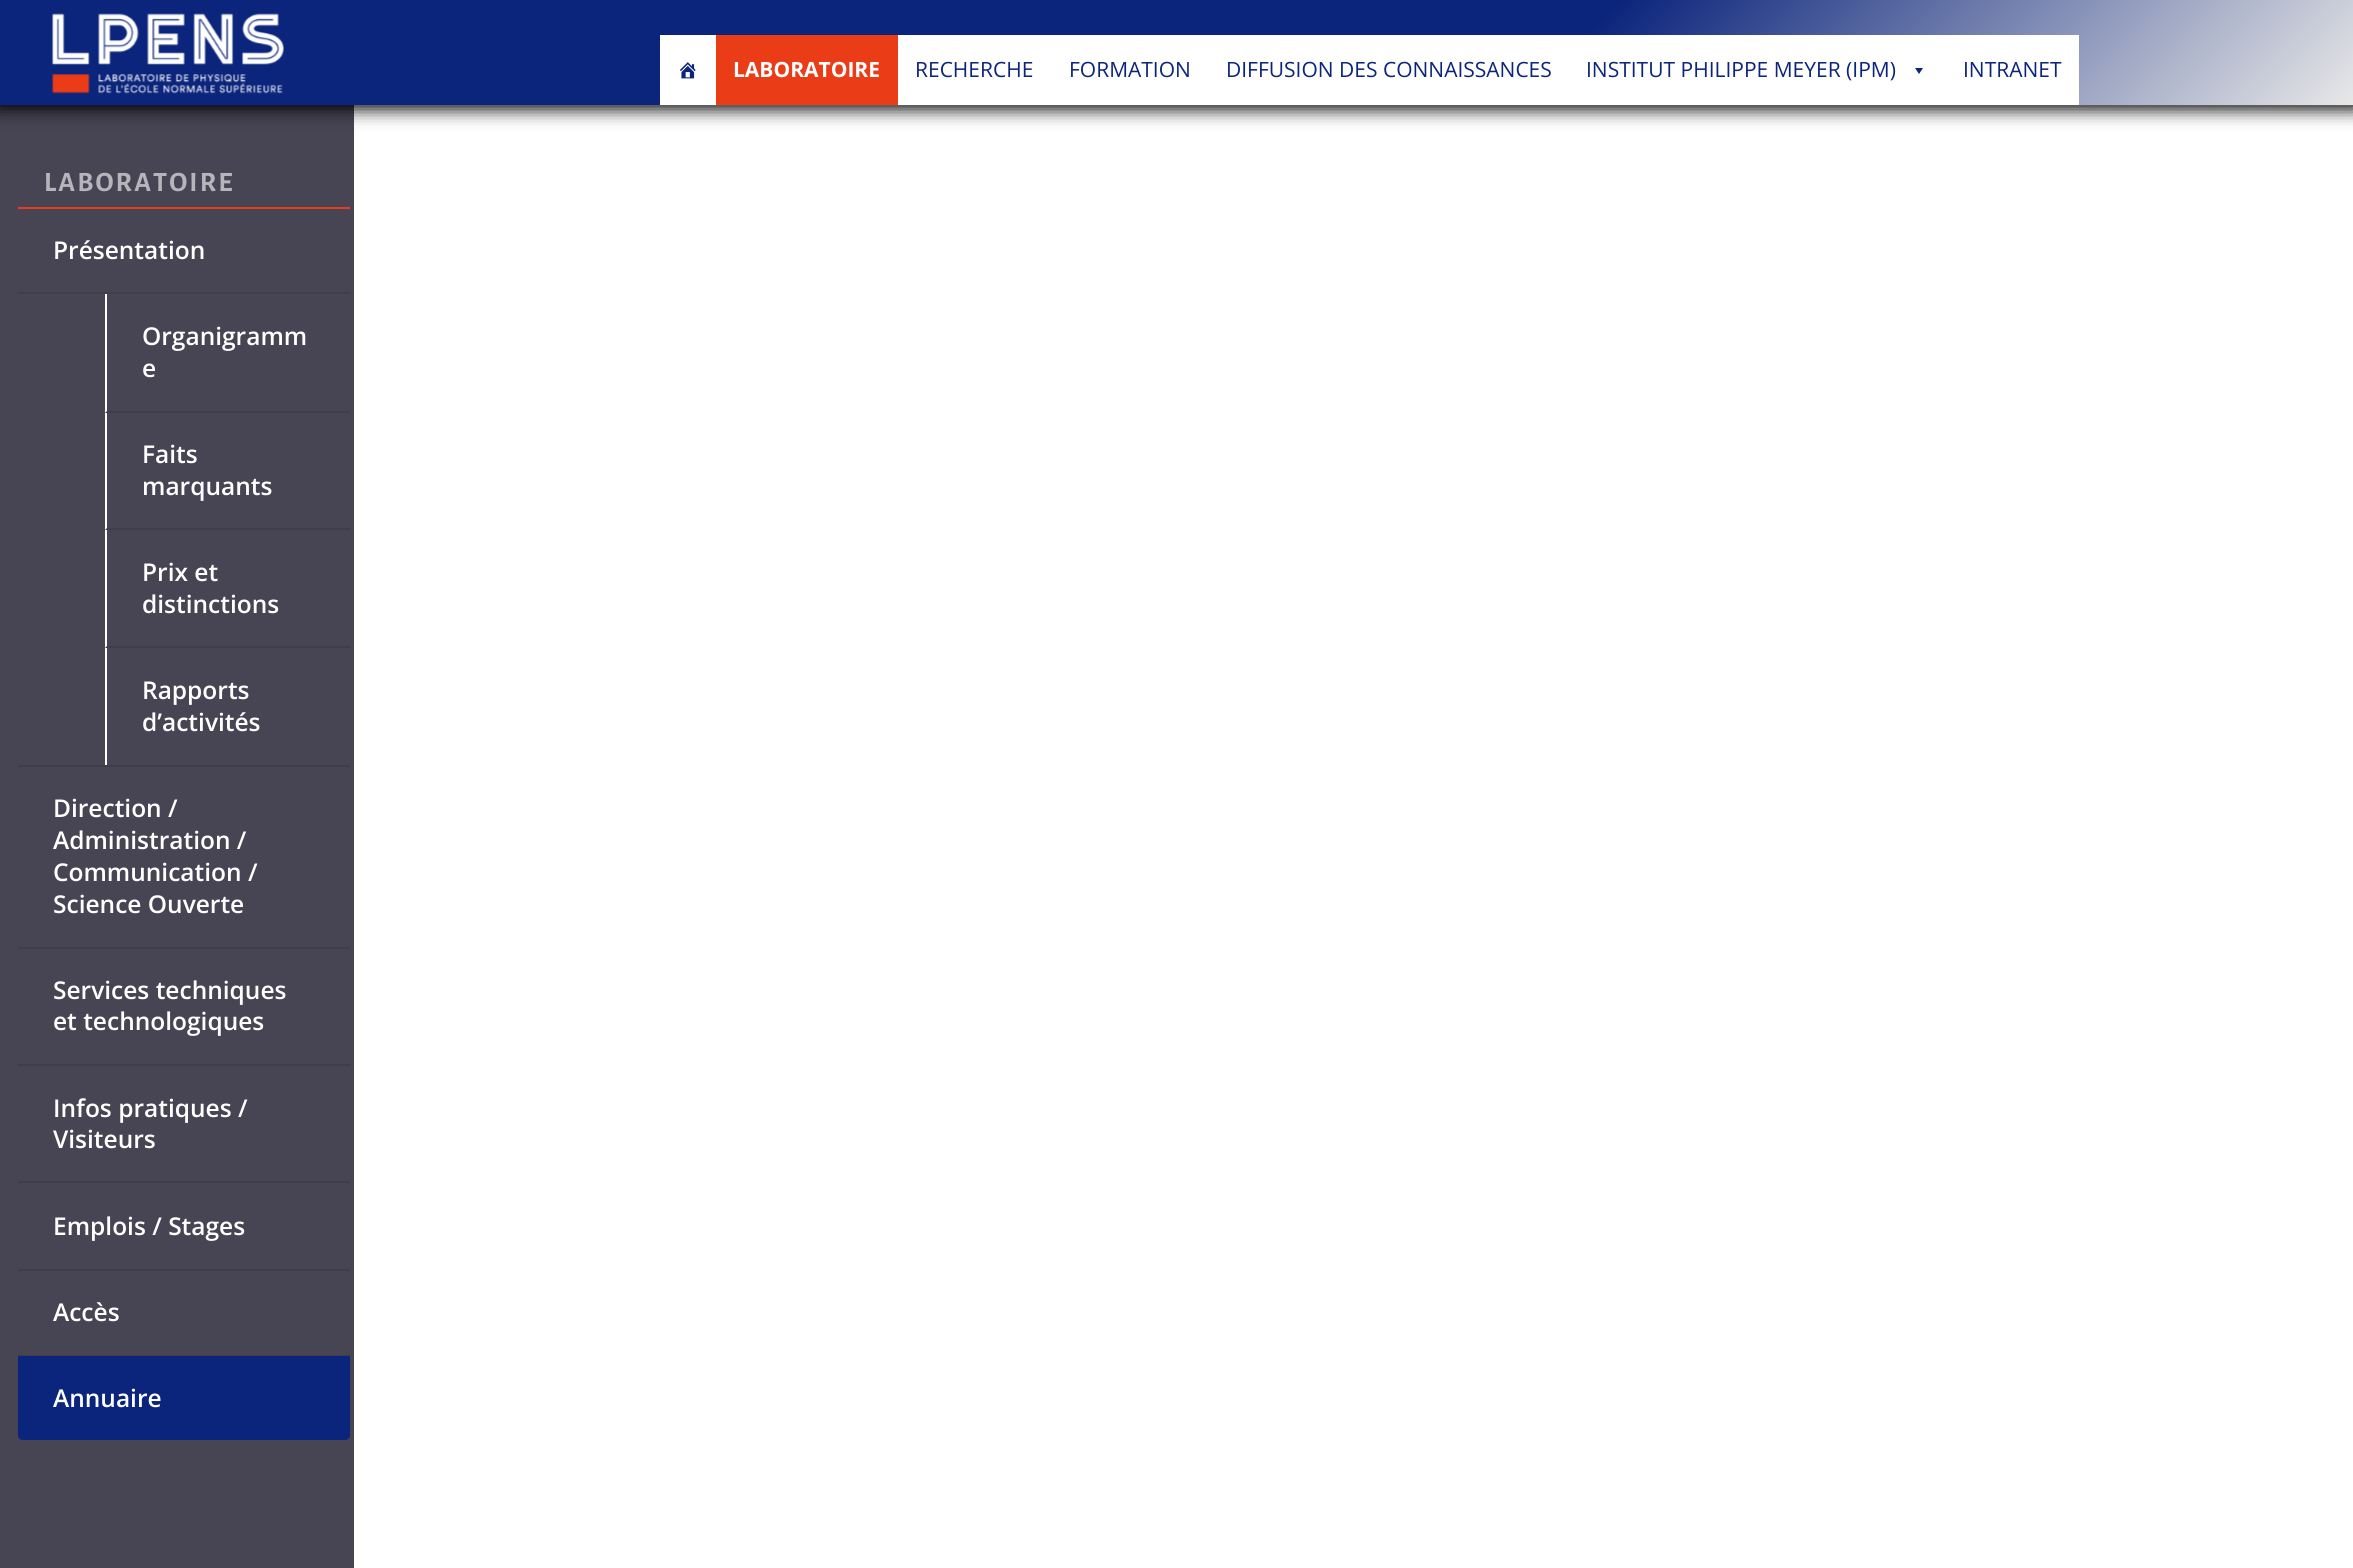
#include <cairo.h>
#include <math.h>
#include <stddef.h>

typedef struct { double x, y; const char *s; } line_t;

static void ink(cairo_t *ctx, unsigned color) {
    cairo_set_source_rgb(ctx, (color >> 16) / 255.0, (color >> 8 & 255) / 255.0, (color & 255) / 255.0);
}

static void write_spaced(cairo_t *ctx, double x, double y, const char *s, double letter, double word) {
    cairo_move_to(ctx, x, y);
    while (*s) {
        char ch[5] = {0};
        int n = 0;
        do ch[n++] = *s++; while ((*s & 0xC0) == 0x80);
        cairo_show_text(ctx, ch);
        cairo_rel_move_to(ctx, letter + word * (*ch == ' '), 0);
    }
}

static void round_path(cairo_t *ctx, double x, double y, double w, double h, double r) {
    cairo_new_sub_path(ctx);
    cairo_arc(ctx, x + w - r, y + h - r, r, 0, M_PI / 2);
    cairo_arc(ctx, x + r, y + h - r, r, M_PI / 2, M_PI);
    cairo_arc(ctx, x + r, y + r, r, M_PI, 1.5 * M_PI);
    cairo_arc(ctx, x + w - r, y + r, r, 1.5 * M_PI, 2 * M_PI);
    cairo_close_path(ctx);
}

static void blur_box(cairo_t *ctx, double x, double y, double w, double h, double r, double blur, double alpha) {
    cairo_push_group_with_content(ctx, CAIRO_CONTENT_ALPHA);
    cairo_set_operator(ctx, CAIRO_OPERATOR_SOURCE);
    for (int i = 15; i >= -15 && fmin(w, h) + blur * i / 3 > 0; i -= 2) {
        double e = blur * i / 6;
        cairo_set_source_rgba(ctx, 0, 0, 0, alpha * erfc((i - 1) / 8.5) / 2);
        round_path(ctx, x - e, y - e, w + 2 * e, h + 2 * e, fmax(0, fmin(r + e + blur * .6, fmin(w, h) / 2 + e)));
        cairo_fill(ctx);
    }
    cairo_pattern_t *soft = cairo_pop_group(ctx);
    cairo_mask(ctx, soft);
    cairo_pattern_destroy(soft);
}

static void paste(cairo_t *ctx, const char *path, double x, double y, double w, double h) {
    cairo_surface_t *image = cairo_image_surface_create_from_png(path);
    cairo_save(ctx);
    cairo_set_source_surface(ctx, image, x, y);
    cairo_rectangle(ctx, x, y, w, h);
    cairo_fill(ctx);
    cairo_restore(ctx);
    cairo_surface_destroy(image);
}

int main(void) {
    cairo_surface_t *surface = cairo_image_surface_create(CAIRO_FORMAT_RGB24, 2353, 1568);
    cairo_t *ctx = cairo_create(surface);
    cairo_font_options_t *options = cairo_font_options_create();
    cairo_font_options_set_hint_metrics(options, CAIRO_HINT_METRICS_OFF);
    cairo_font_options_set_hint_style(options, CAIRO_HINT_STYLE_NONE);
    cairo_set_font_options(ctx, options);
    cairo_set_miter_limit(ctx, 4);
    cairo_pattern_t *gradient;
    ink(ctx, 0xFFFFFF);
    cairo_paint(ctx);
    ink(ctx, 0x474554);
    cairo_rectangle(ctx, 0, 105, 354, 1463);
    cairo_fill(ctx);
    ink(ctx, 0x000000);
    blur_box(ctx, -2, 0, 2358, 109, 0, 9, 1);
    gradient = cairo_pattern_create_linear(562, -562, 1792, 667);
    cairo_pattern_add_color_stop_rgba(gradient, 0, 0.047, 0.145, 0.486, 1);
    cairo_pattern_add_color_stop_rgba(gradient, 0.66, 0.047, 0.145, 0.486, 1);
    cairo_pattern_add_color_stop_rgba(gradient, 1, 0.91, 0.91, 0.91, 1);
    cairo_set_source(ctx, gradient);
    cairo_pattern_destroy(gradient);
    cairo_rectangle(ctx, 0, 0, 2353, 105);
    cairo_fill(ctx);
    paste(ctx, "media/1.png", 52, 13, 232, 81);
    ink(ctx, 0xFFFFFF);
    cairo_rectangle(ctx, 660, 35, 1419, 70);
    cairo_fill(ctx);
    paste(ctx, "media/2.png", 680, 62, 16, 17);
    ink(ctx, 0xEA3C17);
    cairo_rectangle(ctx, 716, 35, 182, 70);
    cairo_fill(ctx);
    cairo_select_font_face(ctx, "Open Sans", CAIRO_FONT_SLANT_NORMAL, CAIRO_FONT_WEIGHT_BOLD);
    cairo_set_font_size(ctx, 21);
    ink(ctx, 0xFFFFFF);
    cairo_move_to(ctx, 733, 77);
    cairo_show_text(ctx, "LABORATOIRE");
    cairo_select_font_face(ctx, "Open Sans", CAIRO_FONT_SLANT_NORMAL, CAIRO_FONT_WEIGHT_NORMAL);
    ink(ctx, 0x0C257C);
    {
        static const line_t items[] = {
            {915, 77, "RECHERCHE"},
            {1069, 77, "FORMATION"},
            {1226, 77, "DIFFUSION DES CONNAISSANCES"},
            {1586, 77, "INSTITUT PHILIPPE MEYER (IPM)"},
        };
        for (size_t i = 0; i < sizeof items / sizeof *items; i++) {
            cairo_move_to(ctx, items[i].x, items[i].y);
            cairo_show_text(ctx, items[i].s);
        }
    }
    cairo_new_path(ctx);
    cairo_move_to(ctx, 1923, 68);
    cairo_line_to(ctx, 1919, 74);
    cairo_line_to(ctx, 1915, 68);
    cairo_close_path(ctx);
    cairo_fill(ctx);
    cairo_move_to(ctx, 1963, 77);
    cairo_show_text(ctx, "INTRANET");
    ink(ctx, 0xEA3C17);
    cairo_rectangle(ctx, 18, 207, 332, 2);
    cairo_fill(ctx);
    cairo_select_font_face(ctx, "Alegreya Sans SC", CAIRO_FONT_SLANT_NORMAL, CAIRO_FONT_WEIGHT_BOLD);
    cairo_set_font_size(ctx, 28);
    ink(ctx, 0xB5B5BB);
    write_spaced(ctx, 44, 191, "LABORATOIRE", 2.1, 0);
    ink(ctx, 0x403E4C);
    cairo_rectangle(ctx, 18, 765, 332, 2);
    cairo_fill(ctx);
    cairo_select_font_face(ctx, "Open Sans SemiBold", CAIRO_FONT_SLANT_NORMAL, CAIRO_FONT_WEIGHT_NORMAL);
    cairo_set_font_size(ctx, 24.5);
    ink(ctx, 0xFFFFFF);
    cairo_move_to(ctx, 53, 259);
    cairo_show_text(ctx, "Présentation");
    ink(ctx, 0x403E4C);
    cairo_rectangle(ctx, 18, 292, 332, 2);
    cairo_fill(ctx);
    cairo_new_path(ctx);
    cairo_move_to(ctx, 350, 413);
    cairo_line_to(ctx, 105, 413);
    cairo_line_to(ctx, 107, 411);
    cairo_line_to(ctx, 350, 411);
    cairo_close_path(ctx);
    cairo_fill(ctx);
    ink(ctx, 0xFFFFFF);
    cairo_new_path(ctx);
    cairo_move_to(ctx, 105, 413);
    cairo_line_to(ctx, 105, 294);
    cairo_line_to(ctx, 107, 294);
    cairo_line_to(ctx, 107, 411);
    cairo_close_path(ctx);
    cairo_fill(ctx);
    cairo_move_to(ctx, 142, 345);
    cairo_show_text(ctx, "Organigramm");
    cairo_move_to(ctx, 142, 377);
    cairo_show_text(ctx, "e");
    ink(ctx, 0x403E4C);
    cairo_new_path(ctx);
    cairo_move_to(ctx, 350, 530);
    cairo_line_to(ctx, 105, 530);
    cairo_line_to(ctx, 107, 528);
    cairo_line_to(ctx, 350, 528);
    cairo_close_path(ctx);
    cairo_fill(ctx);
    ink(ctx, 0xFFFFFF);
    cairo_new_path(ctx);
    cairo_move_to(ctx, 105, 530);
    cairo_line_to(ctx, 105, 413);
    cairo_line_to(ctx, 107, 413);
    cairo_line_to(ctx, 107, 528);
    cairo_close_path(ctx);
    cairo_fill(ctx);
    cairo_move_to(ctx, 142, 463);
    cairo_show_text(ctx, "Faits");
    cairo_move_to(ctx, 142, 495);
    cairo_show_text(ctx, "marquants");
    ink(ctx, 0x403E4C);
    cairo_new_path(ctx);
    cairo_move_to(ctx, 350, 648);
    cairo_line_to(ctx, 105, 648);
    cairo_line_to(ctx, 107, 646);
    cairo_line_to(ctx, 350, 646);
    cairo_close_path(ctx);
    cairo_fill(ctx);
    ink(ctx, 0xFFFFFF);
    cairo_new_path(ctx);
    cairo_move_to(ctx, 105, 648);
    cairo_line_to(ctx, 105, 530);
    cairo_line_to(ctx, 107, 530);
    cairo_line_to(ctx, 107, 646);
    cairo_close_path(ctx);
    cairo_fill(ctx);
    cairo_move_to(ctx, 142, 581);
    cairo_show_text(ctx, "Prix et");
    cairo_move_to(ctx, 142, 613);
    cairo_show_text(ctx, "distinctions");
    cairo_rectangle(ctx, 105, 648, 2, 117);
    cairo_fill(ctx);
    cairo_move_to(ctx, 142, 699);
    cairo_show_text(ctx, "Rapports");
    cairo_move_to(ctx, 142, 731);
    cairo_show_text(ctx, "d’activités");
    ink(ctx, 0x403E4C);
    cairo_rectangle(ctx, 18, 947, 332, 2);
    cairo_fill(ctx);
    ink(ctx, 0xFFFFFF);
    {
        static const line_t items[] = {
            {53, 817, "Direction /"},
            {53, 849, "Administration /"},
            {53, 881, "Communication /"},
            {53, 913, "Science Ouverte"},
        };
        for (size_t i = 0; i < sizeof items / sizeof *items; i++) {
            cairo_move_to(ctx, items[i].x, items[i].y);
            cairo_show_text(ctx, items[i].s);
        }
    }
    ink(ctx, 0x403E4C);
    cairo_rectangle(ctx, 18, 1064, 332, 2);
    cairo_fill(ctx);
    ink(ctx, 0xFFFFFF);
    cairo_move_to(ctx, 53, 999);
    cairo_show_text(ctx, "Services techniques");
    cairo_move_to(ctx, 53, 1030);
    cairo_show_text(ctx, "et technologiques");
    ink(ctx, 0x403E4C);
    cairo_rectangle(ctx, 18, 1181, 332, 2);
    cairo_fill(ctx);
    ink(ctx, 0xFFFFFF);
    cairo_move_to(ctx, 53, 1117);
    cairo_show_text(ctx, "Infos pratiques /");
    cairo_move_to(ctx, 53, 1148);
    cairo_show_text(ctx, "Visiteurs");
    ink(ctx, 0x403E4C);
    cairo_rectangle(ctx, 18, 1269, 332, 2);
    cairo_fill(ctx);
    ink(ctx, 0xFFFFFF);
    cairo_move_to(ctx, 53, 1235);
    cairo_show_text(ctx, "Emplois / Stages");
    ink(ctx, 0x403E4C);
    cairo_rectangle(ctx, 18, 1355, 332, 1);
    cairo_fill(ctx);
    ink(ctx, 0xFFFFFF);
    cairo_move_to(ctx, 53, 1321);
    cairo_show_text(ctx, "Accès");
    ink(ctx, 0x0C257C);
    cairo_new_path(ctx);
    cairo_move_to(ctx, 18, 1356);
    cairo_line_to(ctx, 350, 1356);
    cairo_line_to(ctx, 350, 1435);
    cairo_curve_to(ctx, 350, 1438, 348, 1440, 345, 1440);
    cairo_line_to(ctx, 23, 1440);
    cairo_curve_to(ctx, 20, 1440, 18, 1438, 18, 1435);
    cairo_close_path(ctx);
    cairo_fill(ctx);
    ink(ctx, 0xFFFFFF);
    cairo_move_to(ctx, 53, 1407);
    cairo_show_text(ctx, "Annuaire");
    cairo_surface_write_to_png(surface, "image.png");
    cairo_font_options_destroy(options);
    cairo_destroy(ctx);
    cairo_surface_destroy(surface);
    return 0;
}
